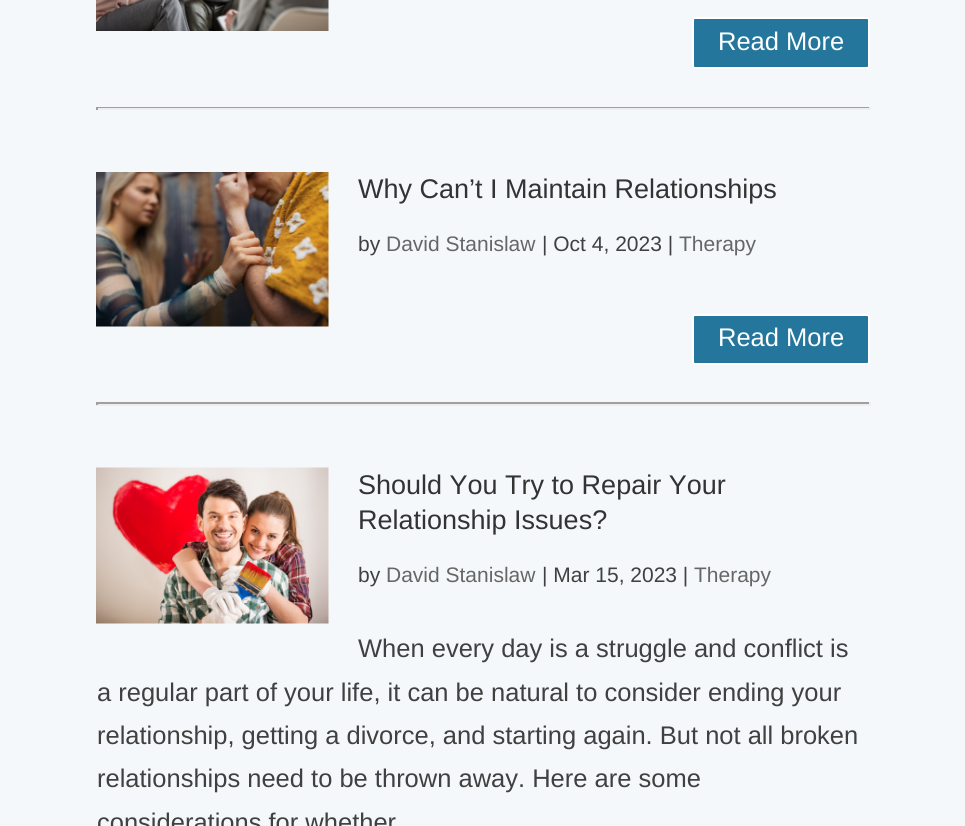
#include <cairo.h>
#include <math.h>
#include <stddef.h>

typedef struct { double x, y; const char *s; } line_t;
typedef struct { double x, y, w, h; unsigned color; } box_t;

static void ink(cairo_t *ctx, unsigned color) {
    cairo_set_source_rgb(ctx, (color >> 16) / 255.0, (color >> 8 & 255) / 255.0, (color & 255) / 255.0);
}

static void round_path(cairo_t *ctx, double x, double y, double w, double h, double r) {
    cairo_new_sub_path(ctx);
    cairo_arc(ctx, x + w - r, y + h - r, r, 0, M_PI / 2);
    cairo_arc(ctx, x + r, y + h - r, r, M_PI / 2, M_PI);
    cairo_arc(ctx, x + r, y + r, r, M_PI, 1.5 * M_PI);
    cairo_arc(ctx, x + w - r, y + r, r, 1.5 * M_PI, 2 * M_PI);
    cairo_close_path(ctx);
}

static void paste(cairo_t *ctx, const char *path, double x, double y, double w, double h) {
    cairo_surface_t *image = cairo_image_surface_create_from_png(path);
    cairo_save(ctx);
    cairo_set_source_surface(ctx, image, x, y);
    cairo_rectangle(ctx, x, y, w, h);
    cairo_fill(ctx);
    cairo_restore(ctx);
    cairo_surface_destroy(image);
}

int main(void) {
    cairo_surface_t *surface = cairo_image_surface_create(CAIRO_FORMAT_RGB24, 965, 826);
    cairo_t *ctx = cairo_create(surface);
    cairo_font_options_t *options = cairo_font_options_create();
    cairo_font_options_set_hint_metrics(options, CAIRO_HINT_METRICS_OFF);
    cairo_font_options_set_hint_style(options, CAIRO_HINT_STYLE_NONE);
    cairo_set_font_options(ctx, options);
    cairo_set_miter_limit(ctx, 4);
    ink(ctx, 0xF4F8FA);
    cairo_paint(ctx);
    paste(ctx, "media/1.png", 96, 0, 233, 31);
    ink(ctx, 0x24769C);
    round_path(ctx, 693, 18, 176, 50, 2);
    cairo_fill_preserve(ctx);
    ink(ctx, 0xFFFFFF);
    cairo_stroke(ctx);
    cairo_select_font_face(ctx, "Liberation Sans", CAIRO_FONT_SLANT_NORMAL, CAIRO_FONT_WEIGHT_NORMAL);
    cairo_set_font_size(ctx, 25.5);
    cairo_move_to(ctx, 718, 50);
    cairo_show_text(ctx, "Read More");
    {
        static const box_t items[] = {
            {96, 107, 774, 1, 0x9F9F9F},
            {869, 107, 2, 3, 0xEEEEEE},
            {96, 108, 774, 2, 0xEEEEEE},
            {96, 107, 2, 3, 0x9F9F9F},
        };
        for (size_t i = 0; i < sizeof items / sizeof *items; i++) {
            ink(ctx, items[i].color);
            cairo_rectangle(ctx, items[i].x, items[i].y, items[i].w, items[i].h);
            cairo_fill(ctx);
        }
    }
    paste(ctx, "media/2.png", 96, 172, 233, 155);
    cairo_set_font_size(ctx, 27);
    ink(ctx, 0x333333);
    cairo_move_to(ctx, 358, 198);
    cairo_show_text(ctx, "Why Can’t I Maintain Relationships");
    cairo_set_font_size(ctx, 21);
    ink(ctx, 0x404040);
    cairo_move_to(ctx, 358, 251);
    cairo_show_text(ctx, "by");
    ink(ctx, 0x666666);
    cairo_move_to(ctx, 386, 251);
    cairo_show_text(ctx, "David Stanislaw");
    ink(ctx, 0x404040);
    cairo_move_to(ctx, 542, 251);
    cairo_show_text(ctx, "| Oct 4, 2023 |");
    ink(ctx, 0x666666);
    cairo_move_to(ctx, 679, 251);
    cairo_show_text(ctx, "Therapy");
    ink(ctx, 0x24769C);
    round_path(ctx, 693, 315, 176, 49, 2);
    cairo_fill_preserve(ctx);
    ink(ctx, 0xFFFFFF);
    cairo_stroke(ctx);
    cairo_set_font_size(ctx, 25.5);
    cairo_move_to(ctx, 718, 346);
    cairo_show_text(ctx, "Read More");
    {
        static const box_t items[] = {
            {96, 402, 774, 2, 0x9F9F9F},
            {869, 402, 2, 3, 0xEEEEEE},
            {96, 404, 774, 2, 0xEEEEEE},
            {96, 402, 2, 3, 0x9F9F9F},
        };
        for (size_t i = 0; i < sizeof items / sizeof *items; i++) {
            ink(ctx, items[i].color);
            cairo_rectangle(ctx, items[i].x, items[i].y, items[i].w, items[i].h);
            cairo_fill(ctx);
        }
    }
    paste(ctx, "media/3.png", 96, 467, 233, 157);
    cairo_set_font_size(ctx, 27);
    ink(ctx, 0x333333);
    cairo_move_to(ctx, 358, 494);
    cairo_show_text(ctx, "Should You Try to Repair Your");
    cairo_move_to(ctx, 358, 529);
    cairo_show_text(ctx, "Relationship Issues?");
    cairo_set_font_size(ctx, 21);
    ink(ctx, 0x404040);
    cairo_move_to(ctx, 358, 582);
    cairo_show_text(ctx, "by");
    ink(ctx, 0x666666);
    cairo_move_to(ctx, 386, 582);
    cairo_show_text(ctx, "David Stanislaw");
    ink(ctx, 0x404040);
    cairo_move_to(ctx, 542, 582);
    cairo_show_text(ctx, "| Mar 15, 2023 |");
    ink(ctx, 0x666666);
    cairo_move_to(ctx, 694, 582);
    cairo_show_text(ctx, "Therapy");
    cairo_set_font_size(ctx, 25.5);
    ink(ctx, 0x404040);
    {
        static const line_t items[] = {
            {358, 657, "When every day is a struggle and conflict is"},
            {97, 701, "a regular part of your life, it can be natural to consider ending your"},
            {97, 744, "relationship, getting a divorce, and starting again. But not all broken"},
            {97, 787, "relationships need to be thrown away. Here are some"},
            {97, 831, "considerations for whether"},
        };
        for (size_t i = 0; i < sizeof items / sizeof *items; i++) {
            cairo_move_to(ctx, items[i].x, items[i].y);
            cairo_show_text(ctx, items[i].s);
        }
    }
    cairo_surface_write_to_png(surface, "image.png");
    cairo_font_options_destroy(options);
    cairo_destroy(ctx);
    cairo_surface_destroy(surface);
    return 0;
}
